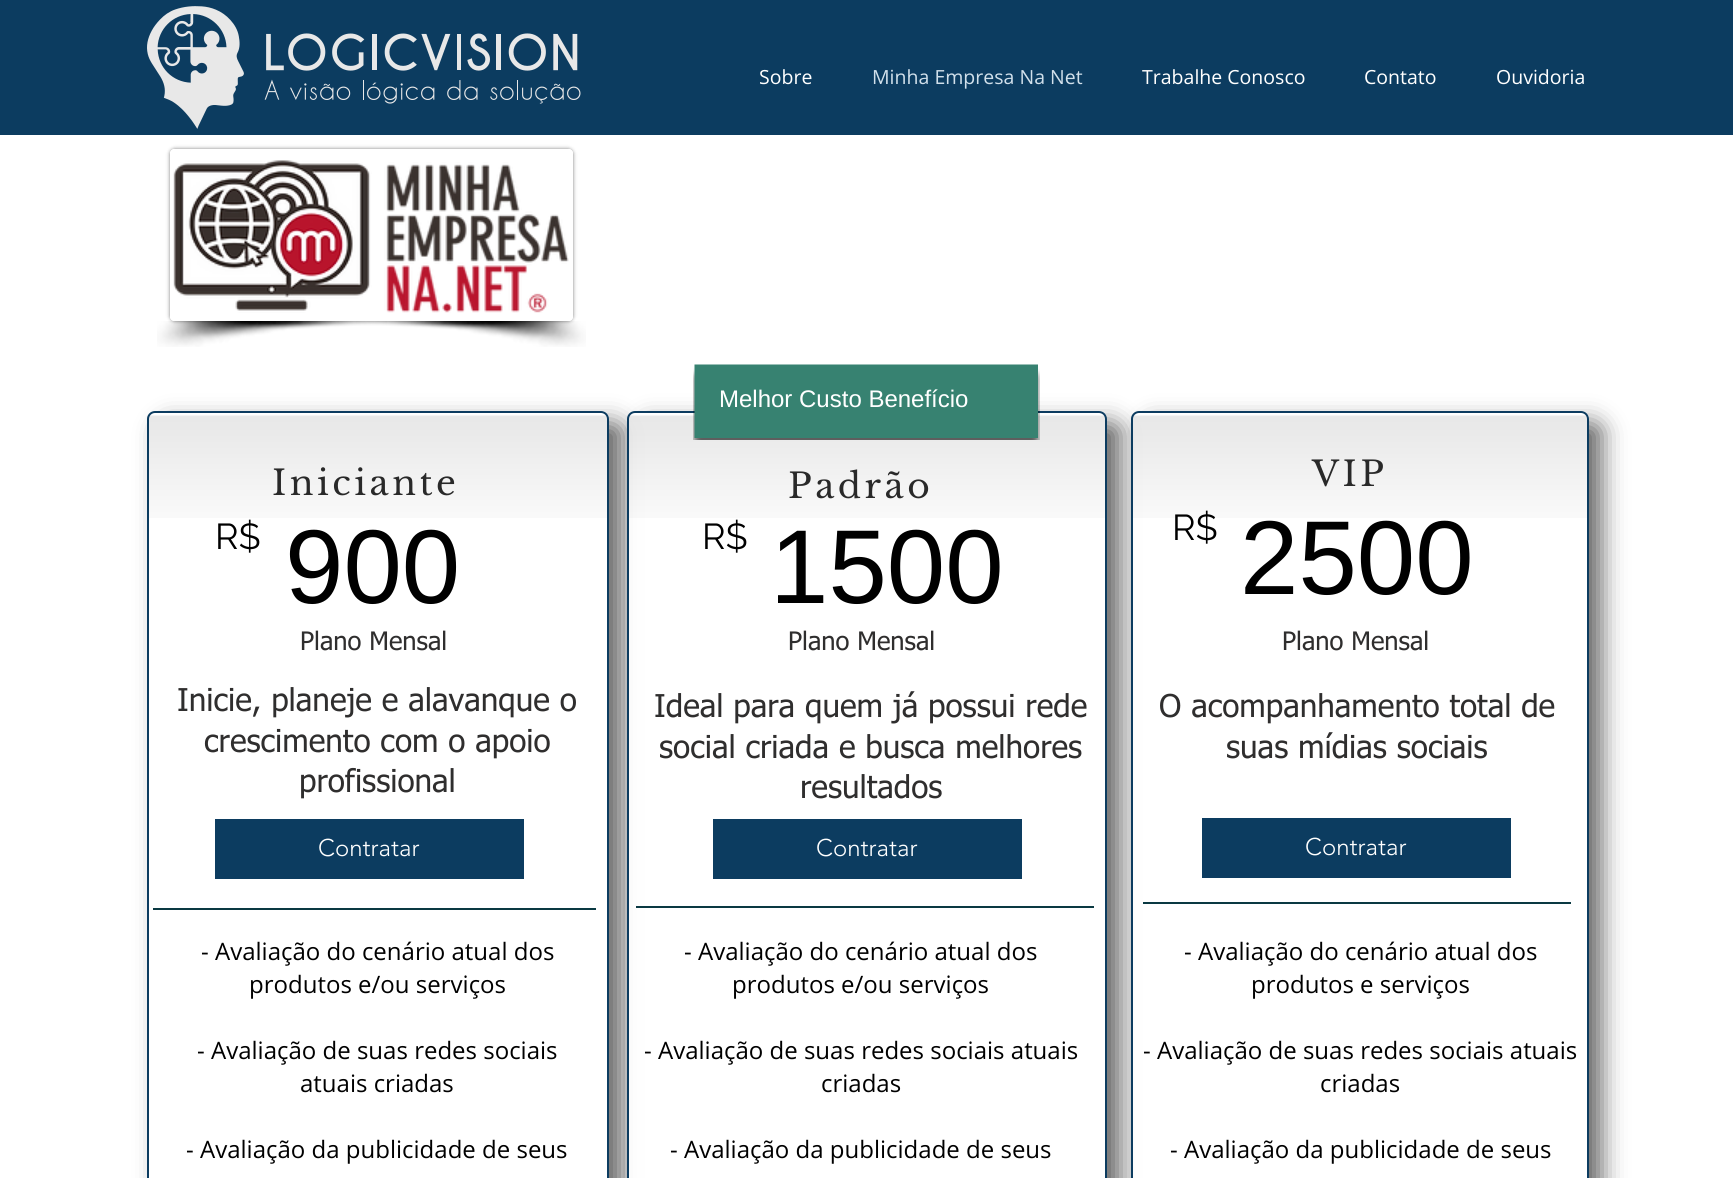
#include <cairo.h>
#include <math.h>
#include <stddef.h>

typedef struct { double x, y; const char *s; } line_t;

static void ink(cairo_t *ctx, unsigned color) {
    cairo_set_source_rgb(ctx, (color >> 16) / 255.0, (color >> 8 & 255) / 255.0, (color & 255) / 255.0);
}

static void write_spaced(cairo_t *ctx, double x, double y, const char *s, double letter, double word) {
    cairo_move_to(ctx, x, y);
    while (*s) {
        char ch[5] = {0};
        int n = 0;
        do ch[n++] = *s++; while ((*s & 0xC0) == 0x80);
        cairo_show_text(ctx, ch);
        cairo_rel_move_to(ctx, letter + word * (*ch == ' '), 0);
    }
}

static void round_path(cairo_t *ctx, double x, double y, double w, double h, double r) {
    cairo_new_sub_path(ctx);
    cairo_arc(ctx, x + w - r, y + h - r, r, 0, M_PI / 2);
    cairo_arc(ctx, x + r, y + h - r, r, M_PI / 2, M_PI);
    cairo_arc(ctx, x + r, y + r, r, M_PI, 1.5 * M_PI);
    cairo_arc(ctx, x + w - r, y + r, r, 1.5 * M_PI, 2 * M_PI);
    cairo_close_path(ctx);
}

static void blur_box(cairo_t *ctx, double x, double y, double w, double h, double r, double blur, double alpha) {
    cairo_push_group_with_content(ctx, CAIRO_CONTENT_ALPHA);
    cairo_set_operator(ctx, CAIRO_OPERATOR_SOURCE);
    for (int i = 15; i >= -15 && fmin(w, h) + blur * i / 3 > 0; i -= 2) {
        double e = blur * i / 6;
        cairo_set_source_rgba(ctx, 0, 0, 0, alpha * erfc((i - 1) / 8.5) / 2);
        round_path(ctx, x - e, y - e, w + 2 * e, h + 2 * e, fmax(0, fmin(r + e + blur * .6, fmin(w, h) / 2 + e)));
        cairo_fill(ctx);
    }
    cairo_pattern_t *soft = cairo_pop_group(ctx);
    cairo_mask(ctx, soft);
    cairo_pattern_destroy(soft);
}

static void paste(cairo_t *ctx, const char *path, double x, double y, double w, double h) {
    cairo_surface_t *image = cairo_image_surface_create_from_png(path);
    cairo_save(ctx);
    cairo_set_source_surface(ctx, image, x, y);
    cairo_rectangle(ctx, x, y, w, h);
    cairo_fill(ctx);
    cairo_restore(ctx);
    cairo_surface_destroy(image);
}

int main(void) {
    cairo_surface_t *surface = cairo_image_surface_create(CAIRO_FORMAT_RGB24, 1733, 1178);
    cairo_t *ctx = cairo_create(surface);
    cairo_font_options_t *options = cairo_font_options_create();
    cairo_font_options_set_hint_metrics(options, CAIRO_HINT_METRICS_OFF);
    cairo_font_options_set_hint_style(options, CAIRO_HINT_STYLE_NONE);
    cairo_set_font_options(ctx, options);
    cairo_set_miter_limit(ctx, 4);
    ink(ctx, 0xFFFFFF);
    cairo_paint(ctx);
    ink(ctx, 0x0C3C60);
    cairo_rectangle(ctx, 0, 0, 1733, 135);
    cairo_fill(ctx);
    paste(ctx, "media/1.png", 147, 6, 434, 123);
    cairo_select_font_face(ctx, "Open Sans", CAIRO_FONT_SLANT_NORMAL, CAIRO_FONT_WEIGHT_NORMAL);
    cairo_set_font_size(ctx, 19.5);
    ink(ctx, 0xFFFFFF);
    cairo_move_to(ctx, 759, 84);
    cairo_show_text(ctx, "Sobre");
    ink(ctx, 0xD1E0EB);
    cairo_move_to(ctx, 872, 84);
    cairo_show_text(ctx, "Minha Empresa Na Net");
    ink(ctx, 0xFFFFFF);
    {
        static const line_t items[] = {
            {1142, 84, "Trabalhe Conosco"},
            {1364, 84, "Contato"},
            {1496, 84, "Ouvidoria"},
        };
        for (size_t i = 0; i < sizeof items / sizeof *items; i++) {
            cairo_move_to(ctx, items[i].x, items[i].y);
            cairo_show_text(ctx, items[i].s);
        }
    }
    cairo_save(ctx);
    cairo_set_fill_rule(ctx, CAIRO_FILL_RULE_EVEN_ODD);
    cairo_new_path(ctx);
    cairo_move_to(ctx, 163, 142);
    cairo_line_to(ctx, 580, 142);
    cairo_line_to(ctx, 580, 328);
    cairo_line_to(ctx, 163, 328);
    cairo_close_path(ctx);
    cairo_move_to(ctx, 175, 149);
    cairo_line_to(ctx, 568, 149);
    cairo_curve_to(ctx, 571, 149, 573, 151, 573, 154);
    cairo_line_to(ctx, 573, 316);
    cairo_curve_to(ctx, 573, 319, 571, 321, 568, 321);
    cairo_line_to(ctx, 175, 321);
    cairo_curve_to(ctx, 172, 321, 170, 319, 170, 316);
    cairo_line_to(ctx, 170, 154);
    cairo_curve_to(ctx, 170, 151, 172, 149, 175, 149);
    cairo_close_path(ctx);
    cairo_clip(ctx);
    ink(ctx, 0x000000);
    blur_box(ctx, 170, 149, 403, 172, 5, 2, 0.5);
    cairo_restore(ctx);
    cairo_set_source_rgba(ctx, 1, 1, 1, 0.97);
    round_path(ctx, 170, 149, 403, 172, 5);
    cairo_fill(ctx);
    round_path(ctx, 171.5, 150.5, 400, 169, 3.5);
    cairo_set_line_width(ctx, 3);
    cairo_stroke(ctx);
    paste(ctx, "media/2.png", 173, 160, 396, 153);
    paste(ctx, "media/3.png", 157, 321, 230, 26);
    paste(ctx, "media/4.png", 356, 321, 230, 26);
    cairo_save(ctx);
    cairo_set_fill_rule(ctx, CAIRO_FILL_RULE_EVEN_ODD);
    cairo_new_path(ctx);
    cairo_move_to(ctx, 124, 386);
    cairo_line_to(ctx, 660, 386);
    cairo_line_to(ctx, 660, 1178);
    cairo_line_to(ctx, 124, 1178);
    cairo_close_path(ctx);
    cairo_move_to(ctx, 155, 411);
    cairo_line_to(ctx, 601, 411);
    cairo_curve_to(ctx, 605.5, 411, 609, 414.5, 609, 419);
    cairo_line_to(ctx, 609, 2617);
    cairo_curve_to(ctx, 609, 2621.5, 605.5, 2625, 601, 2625);
    cairo_line_to(ctx, 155, 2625);
    cairo_curve_to(ctx, 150.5, 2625, 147, 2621.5, 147, 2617);
    cairo_line_to(ctx, 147, 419);
    cairo_curve_to(ctx, 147, 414.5, 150.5, 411, 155, 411);
    cairo_close_path(ctx);
    cairo_clip(ctx);
    ink(ctx, 0x000000);
    blur_box(ctx, 161, 423, 462, 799, 8, 12, 0.6);
    cairo_restore(ctx);
    cairo_set_source_rgba(ctx, 1, 1, 1, 0.9);
    round_path(ctx, 147, 411, 462, 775, 8);
    cairo_fill(ctx);
    paste(ctx, "media/6.png", 147, 415, 462, 103);
    round_path(ctx, 148, 412, 460, 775, 7);
    ink(ctx, 0x0C3C60);
    cairo_set_line_width(ctx, 2);
    cairo_stroke(ctx);
    cairo_save(ctx);
    cairo_set_fill_rule(ctx, CAIRO_FILL_RULE_EVEN_ODD);
    cairo_new_path(ctx);
    cairo_move_to(ctx, 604, 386);
    cairo_line_to(ctx, 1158, 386);
    cairo_line_to(ctx, 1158, 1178);
    cairo_line_to(ctx, 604, 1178);
    cairo_close_path(ctx);
    cairo_move_to(ctx, 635, 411);
    cairo_line_to(ctx, 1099, 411);
    cairo_curve_to(ctx, 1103.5, 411, 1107, 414.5, 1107, 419);
    cairo_line_to(ctx, 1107, 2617);
    cairo_curve_to(ctx, 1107, 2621.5, 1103.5, 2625, 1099, 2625);
    cairo_line_to(ctx, 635, 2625);
    cairo_curve_to(ctx, 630.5, 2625, 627, 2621.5, 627, 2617);
    cairo_line_to(ctx, 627, 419);
    cairo_curve_to(ctx, 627, 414.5, 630.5, 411, 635, 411);
    cairo_close_path(ctx);
    cairo_clip(ctx);
    ink(ctx, 0x000000);
    blur_box(ctx, 641, 423, 480, 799, 8, 12, 0.6);
    cairo_restore(ctx);
    cairo_set_source_rgba(ctx, 1, 1, 1, 0.9);
    round_path(ctx, 627, 411, 480, 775, 8);
    cairo_fill(ctx);
    paste(ctx, "media/7.png", 627, 415, 480, 103);
    round_path(ctx, 628, 412, 478, 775, 7);
    ink(ctx, 0x0C3C60);
    cairo_stroke(ctx);
    paste(ctx, "media/5.png", 693, 364, 347, 76);
    cairo_select_font_face(ctx, "Liberation Sans", CAIRO_FONT_SLANT_NORMAL, CAIRO_FONT_WEIGHT_NORMAL);
    cairo_set_font_size(ctx, 24);
    ink(ctx, 0xFFFFFF);
    cairo_move_to(ctx, 719, 407);
    cairo_show_text(ctx, "Melhor Custo Benefício");
    cairo_select_font_face(ctx, "Libre Baskerville", CAIRO_FONT_SLANT_NORMAL, CAIRO_FONT_WEIGHT_NORMAL);
    cairo_set_font_size(ctx, 34.5);
    ink(ctx, 0x292929);
    write_spaced(ctx, 272, 495, "Iniciante", 3.5, 0);
    cairo_select_font_face(ctx, "Raleway", CAIRO_FONT_SLANT_NORMAL, CAIRO_FONT_WEIGHT_NORMAL);
    cairo_set_font_size(ctx, 36);
    ink(ctx, 0x000000);
    cairo_move_to(ctx, 215, 549);
    cairo_show_text(ctx, "R$");
    cairo_select_font_face(ctx, "Liberation Sans", CAIRO_FONT_SLANT_NORMAL, CAIRO_FONT_WEIGHT_NORMAL);
    cairo_set_font_size(ctx, 105);
    cairo_move_to(ctx, 285, 603);
    cairo_show_text(ctx, "900");
    cairo_select_font_face(ctx, "tahoma", CAIRO_FONT_SLANT_NORMAL, CAIRO_FONT_WEIGHT_NORMAL);
    cairo_set_font_size(ctx, 25.5);
    ink(ctx, 0x2F2E2E);
    cairo_move_to(ctx, 300, 650);
    cairo_show_text(ctx, "Plano Mensal");
    cairo_set_font_size(ctx, 31.5);
    {
        static const line_t items[] = {
            {177, 711, "Inicie, planeje e alavanque o"},
            {204, 752, "crescimento com o apoio"},
            {299, 792, "profissional"},
        };
        for (size_t i = 0; i < sizeof items / sizeof *items; i++) {
            cairo_move_to(ctx, items[i].x, items[i].y);
            cairo_show_text(ctx, items[i].s);
        }
    }
    ink(ctx, 0x0C3C60);
    cairo_rectangle(ctx, 215, 819, 309, 60);
    cairo_fill(ctx);
    cairo_select_font_face(ctx, "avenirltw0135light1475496 Light", CAIRO_FONT_SLANT_NORMAL, CAIRO_FONT_WEIGHT_NORMAL);
    cairo_set_font_size(ctx, 24);
    ink(ctx, 0xFFFFFF);
    cairo_move_to(ctx, 318, 856);
    cairo_show_text(ctx, "Contratar");
    ink(ctx, 0x0A3942);
    cairo_rectangle(ctx, 153, 908, 443, 2);
    cairo_fill(ctx);
    cairo_select_font_face(ctx, "Open Sans", CAIRO_FONT_SLANT_NORMAL, CAIRO_FONT_WEIGHT_NORMAL);
    ink(ctx, 0x000000);
    {
        static const line_t items[] = {
            {201, 960, "- Avaliação do cenário atual dos"},
            {249, 993, "produtos e/ou serviços"},
            {197, 1059, "- Avaliação de suas redes sociais"},
            {300, 1092, "atuais criadas"},
            {186, 1158, "- Avaliação da publicidade de seus"},
        };
        for (size_t i = 0; i < sizeof items / sizeof *items; i++) {
            cairo_move_to(ctx, items[i].x, items[i].y);
            cairo_show_text(ctx, items[i].s);
        }
    }
    cairo_select_font_face(ctx, "Libre Baskerville", CAIRO_FONT_SLANT_NORMAL, CAIRO_FONT_WEIGHT_NORMAL);
    cairo_set_font_size(ctx, 34.5);
    ink(ctx, 0x292929);
    write_spaced(ctx, 788, 498, "Padrão", 3.5, 0);
    cairo_select_font_face(ctx, "Raleway", CAIRO_FONT_SLANT_NORMAL, CAIRO_FONT_WEIGHT_NORMAL);
    cairo_set_font_size(ctx, 36);
    ink(ctx, 0x000000);
    cairo_move_to(ctx, 702, 549);
    cairo_show_text(ctx, "R$");
    cairo_select_font_face(ctx, "Liberation Sans", CAIRO_FONT_SLANT_NORMAL, CAIRO_FONT_WEIGHT_NORMAL);
    cairo_set_font_size(ctx, 105);
    cairo_move_to(ctx, 770, 603);
    cairo_show_text(ctx, "1500");
    cairo_select_font_face(ctx, "tahoma", CAIRO_FONT_SLANT_NORMAL, CAIRO_FONT_WEIGHT_NORMAL);
    cairo_set_font_size(ctx, 25.5);
    ink(ctx, 0x2F2E2E);
    cairo_move_to(ctx, 788, 650);
    cairo_show_text(ctx, "Plano Mensal");
    cairo_set_font_size(ctx, 31.5);
    {
        static const line_t items[] = {
            {654, 717, "Ideal para quem já possui rede"},
            {659, 758, "social criada e busca melhores"},
            {800, 798, "resultados"},
        };
        for (size_t i = 0; i < sizeof items / sizeof *items; i++) {
            cairo_move_to(ctx, items[i].x, items[i].y);
            cairo_show_text(ctx, items[i].s);
        }
    }
    ink(ctx, 0x0C3C60);
    cairo_rectangle(ctx, 713, 819, 309, 60);
    cairo_fill(ctx);
    cairo_select_font_face(ctx, "avenirltw0135light1475496 Light", CAIRO_FONT_SLANT_NORMAL, CAIRO_FONT_WEIGHT_NORMAL);
    cairo_set_font_size(ctx, 24);
    ink(ctx, 0xFFFFFF);
    cairo_move_to(ctx, 816, 856);
    cairo_show_text(ctx, "Contratar");
    ink(ctx, 0x0A3942);
    cairo_rectangle(ctx, 636, 906, 458, 2);
    cairo_fill(ctx);
    cairo_select_font_face(ctx, "Open Sans", CAIRO_FONT_SLANT_NORMAL, CAIRO_FONT_WEIGHT_NORMAL);
    ink(ctx, 0x000000);
    {
        static const line_t items[] = {
            {684, 960, "- Avaliação do cenário atual dos"},
            {732, 993, "produtos e/ou serviços"},
            {644, 1059, "- Avaliação de suas redes sociais atuais"},
            {821, 1092, "criadas"},
            {670, 1158, "- Avaliação da publicidade de seus"},
        };
        for (size_t i = 0; i < sizeof items / sizeof *items; i++) {
            cairo_move_to(ctx, items[i].x, items[i].y);
            cairo_show_text(ctx, items[i].s);
        }
    }
    cairo_save(ctx);
    cairo_set_fill_rule(ctx, CAIRO_FILL_RULE_EVEN_ODD);
    cairo_new_path(ctx);
    cairo_move_to(ctx, 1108, 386);
    cairo_line_to(ctx, 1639, 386);
    cairo_line_to(ctx, 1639, 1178);
    cairo_line_to(ctx, 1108, 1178);
    cairo_close_path(ctx);
    cairo_move_to(ctx, 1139, 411);
    cairo_line_to(ctx, 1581, 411);
    cairo_curve_to(ctx, 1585.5, 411, 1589, 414.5, 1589, 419);
    cairo_line_to(ctx, 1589, 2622);
    cairo_curve_to(ctx, 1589, 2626.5, 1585.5, 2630, 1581, 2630);
    cairo_line_to(ctx, 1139, 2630);
    cairo_curve_to(ctx, 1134.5, 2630, 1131, 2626.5, 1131, 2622);
    cairo_line_to(ctx, 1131, 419);
    cairo_curve_to(ctx, 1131, 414.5, 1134.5, 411, 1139, 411);
    cairo_close_path(ctx);
    cairo_clip(ctx);
    ink(ctx, 0x000000);
    blur_box(ctx, 1145, 423, 457, 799, 8, 12, 0.6);
    cairo_restore(ctx);
    cairo_set_source_rgba(ctx, 1, 1, 1, 0.9);
    round_path(ctx, 1131, 411, 458, 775, 8);
    cairo_fill(ctx);
    paste(ctx, "media/8.png", 1131, 415, 457, 103);
    round_path(ctx, 1132, 412, 456, 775, 7);
    ink(ctx, 0x0C3C60);
    cairo_stroke(ctx);
    cairo_select_font_face(ctx, "Libre Baskerville", CAIRO_FONT_SLANT_NORMAL, CAIRO_FONT_WEIGHT_NORMAL);
    cairo_set_font_size(ctx, 34.5);
    ink(ctx, 0x292929);
    write_spaced(ctx, 1312, 486, "VIP", 3.5, 0);
    cairo_select_font_face(ctx, "Raleway", CAIRO_FONT_SLANT_NORMAL, CAIRO_FONT_WEIGHT_NORMAL);
    cairo_set_font_size(ctx, 36);
    ink(ctx, 0x000000);
    cairo_move_to(ctx, 1172, 540);
    cairo_show_text(ctx, "R$");
    cairo_select_font_face(ctx, "Liberation Sans", CAIRO_FONT_SLANT_NORMAL, CAIRO_FONT_WEIGHT_NORMAL);
    cairo_set_font_size(ctx, 105);
    cairo_move_to(ctx, 1240, 594);
    cairo_show_text(ctx, "2500");
    cairo_select_font_face(ctx, "tahoma", CAIRO_FONT_SLANT_NORMAL, CAIRO_FONT_WEIGHT_NORMAL);
    cairo_set_font_size(ctx, 25.5);
    ink(ctx, 0x2F2E2E);
    cairo_move_to(ctx, 1282, 650);
    cairo_show_text(ctx, "Plano Mensal");
    cairo_set_font_size(ctx, 31.5);
    cairo_move_to(ctx, 1159, 717);
    cairo_show_text(ctx, "O acompanhamento total de");
    cairo_move_to(ctx, 1226, 758);
    cairo_show_text(ctx, "suas mídias sociais");
    ink(ctx, 0x0C3C60);
    cairo_rectangle(ctx, 1202, 818, 309, 60);
    cairo_fill(ctx);
    cairo_select_font_face(ctx, "avenirltw0135light1475496 Light", CAIRO_FONT_SLANT_NORMAL, CAIRO_FONT_WEIGHT_NORMAL);
    cairo_set_font_size(ctx, 24);
    ink(ctx, 0xFFFFFF);
    cairo_move_to(ctx, 1305, 855);
    cairo_show_text(ctx, "Contratar");
    ink(ctx, 0x0A3942);
    cairo_rectangle(ctx, 1143, 902, 428, 2);
    cairo_fill(ctx);
    cairo_select_font_face(ctx, "Open Sans", CAIRO_FONT_SLANT_NORMAL, CAIRO_FONT_WEIGHT_NORMAL);
    ink(ctx, 0x000000);
    {
        static const line_t items[] = {
            {1184, 960, "- Avaliação do cenário atual dos"},
            {1251, 993, "produtos e serviços"},
            {1143, 1059, "- Avaliação de suas redes sociais atuais"},
            {1320, 1092, "criadas"},
            {1170, 1158, "- Avaliação da publicidade de seus"},
        };
        for (size_t i = 0; i < sizeof items / sizeof *items; i++) {
            cairo_move_to(ctx, items[i].x, items[i].y);
            cairo_show_text(ctx, items[i].s);
        }
    }
    cairo_surface_write_to_png(surface, "image.png");
    cairo_font_options_destroy(options);
    cairo_destroy(ctx);
    cairo_surface_destroy(surface);
    return 0;
}
